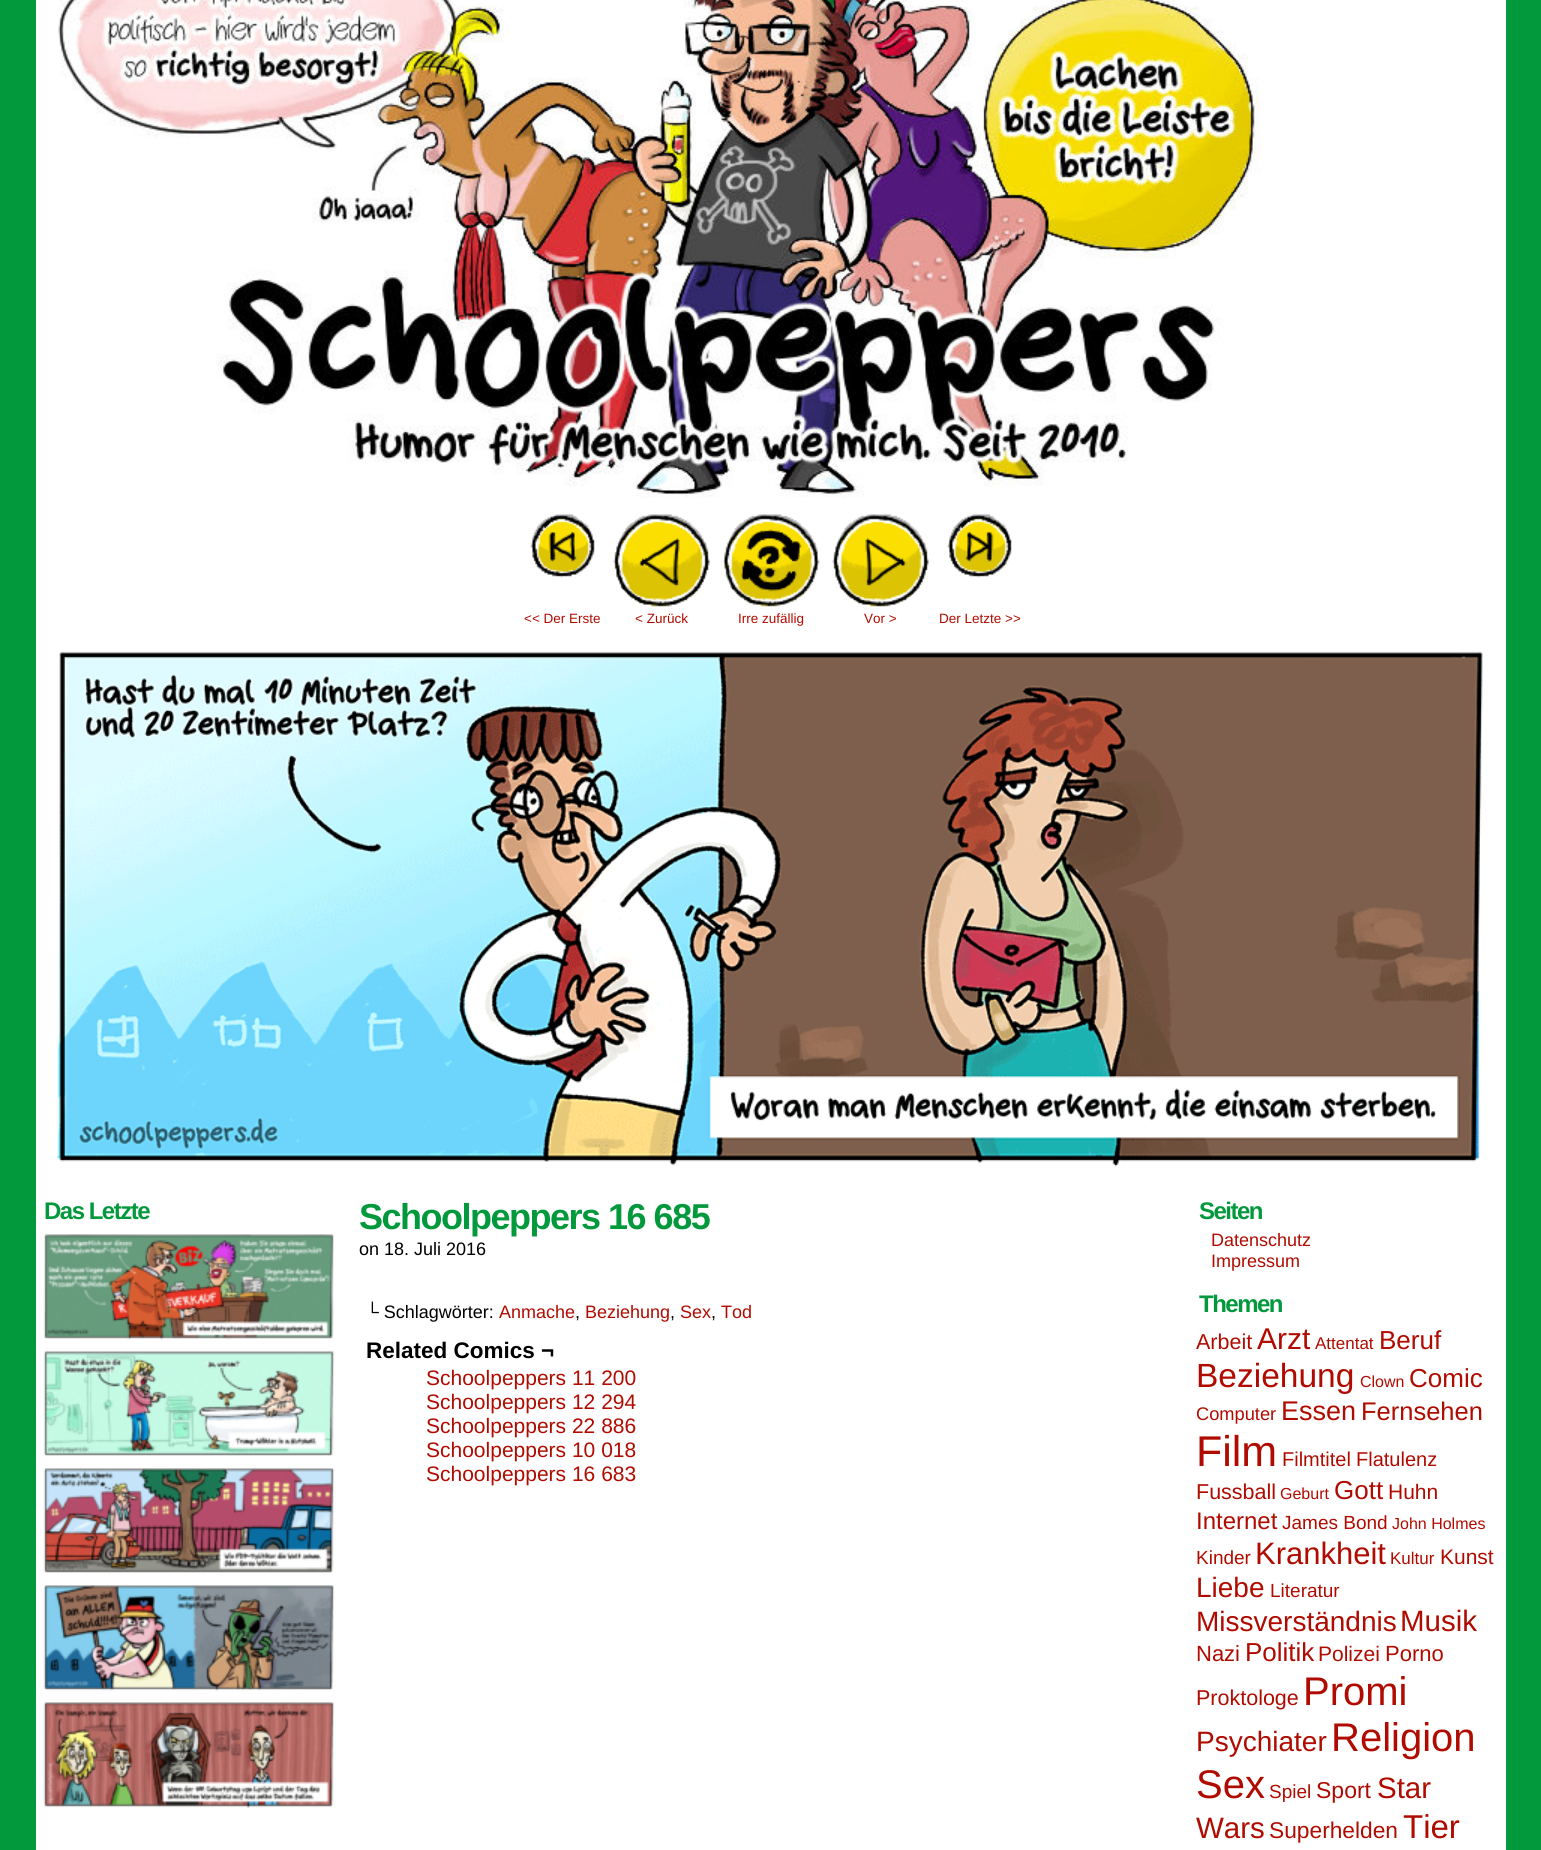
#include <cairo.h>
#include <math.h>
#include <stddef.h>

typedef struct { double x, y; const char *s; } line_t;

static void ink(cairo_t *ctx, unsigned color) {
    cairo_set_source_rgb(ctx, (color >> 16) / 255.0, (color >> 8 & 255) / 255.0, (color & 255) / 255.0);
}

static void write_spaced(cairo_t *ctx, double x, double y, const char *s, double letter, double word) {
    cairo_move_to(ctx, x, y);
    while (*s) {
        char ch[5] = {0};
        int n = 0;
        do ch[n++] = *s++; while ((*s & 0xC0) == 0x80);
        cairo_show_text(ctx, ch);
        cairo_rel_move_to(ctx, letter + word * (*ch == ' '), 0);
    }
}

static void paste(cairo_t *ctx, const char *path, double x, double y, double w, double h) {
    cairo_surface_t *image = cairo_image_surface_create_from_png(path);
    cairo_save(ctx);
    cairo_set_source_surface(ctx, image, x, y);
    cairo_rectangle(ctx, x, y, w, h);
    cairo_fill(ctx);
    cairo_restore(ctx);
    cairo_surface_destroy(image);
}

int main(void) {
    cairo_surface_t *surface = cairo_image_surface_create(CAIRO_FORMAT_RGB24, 1541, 1850);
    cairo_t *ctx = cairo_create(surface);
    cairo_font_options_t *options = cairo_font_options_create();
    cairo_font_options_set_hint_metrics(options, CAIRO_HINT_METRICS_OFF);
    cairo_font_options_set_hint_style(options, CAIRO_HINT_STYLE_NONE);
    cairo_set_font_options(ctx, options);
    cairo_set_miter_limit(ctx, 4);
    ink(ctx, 0x02993C);
    cairo_paint(ctx);
    ink(ctx, 0xFFFFFF);
    cairo_rectangle(ctx, 36, 0, 1470, 1850);
    cairo_fill(ctx);
    paste(ctx, "media/1.png", 58, 0, 1202, 498);
    paste(ctx, "media/2.png", 530, 514, 65, 64);
    cairo_select_font_face(ctx, "Liberation Sans", CAIRO_FONT_SLANT_NORMAL, CAIRO_FONT_WEIGHT_NORMAL);
    cairo_set_font_size(ctx, 13.5);
    ink(ctx, 0xB00B00);
    cairo_move_to(ctx, 524, 623);
    cairo_show_text(ctx, "<< Der Erste");
    paste(ctx, "media/3.png", 613, 514, 97, 93);
    cairo_move_to(ctx, 635, 623);
    cairo_show_text(ctx, "< Zurück");
    paste(ctx, "media/4.png", 723, 514, 97, 93);
    cairo_move_to(ctx, 738, 623);
    cairo_show_text(ctx, "Irre zufällig");
    paste(ctx, "media/5.png", 832, 514, 97, 93);
    cairo_move_to(ctx, 864, 623);
    cairo_show_text(ctx, "Vor >");
    paste(ctx, "media/6.png", 947, 514, 65, 64);
    cairo_move_to(ctx, 939, 623);
    cairo_show_text(ctx, "Der Letzte >>");
    paste(ctx, "media/7.png", 57, 651, 1426, 516);
    cairo_select_font_face(ctx, "Liberation Sans", CAIRO_FONT_SLANT_NORMAL, CAIRO_FONT_WEIGHT_BOLD);
    cairo_set_font_size(ctx, 24);
    ink(ctx, 0x02993C);
    write_spaced(ctx, 44, 1219, "Das Letzte", -1.5, 0);
    paste(ctx, "media/8.png", 43, 1234, 291, 106);
    paste(ctx, "media/9.png", 43, 1351, 292, 105);
    paste(ctx, "media/10.png", 43, 1468, 292, 105);
    paste(ctx, "media/11.png", 43, 1585, 292, 106);
    paste(ctx, "media/12.png", 43, 1702, 292, 106);
    cairo_set_font_size(ctx, 36);
    write_spaced(ctx, 359, 1229, "Schoolpeppers 16 685", -1.5, 0);
    cairo_select_font_face(ctx, "Liberation Sans", CAIRO_FONT_SLANT_NORMAL, CAIRO_FONT_WEIGHT_NORMAL);
    cairo_set_font_size(ctx, 18);
    ink(ctx, 0x000000);
    cairo_move_to(ctx, 359, 1255);
    cairo_show_text(ctx, "on 18. Juli 2016");
    cairo_move_to(ctx, 366, 1318);
    cairo_show_text(ctx, "└ Schlagwörter:");
    ink(ctx, 0xB00B00);
    cairo_move_to(ctx, 499, 1318);
    cairo_show_text(ctx, "Anmache");
    ink(ctx, 0x000000);
    cairo_move_to(ctx, 575, 1318);
    cairo_show_text(ctx, ",");
    ink(ctx, 0xB00B00);
    cairo_move_to(ctx, 585, 1318);
    cairo_show_text(ctx, "Beziehung");
    ink(ctx, 0x000000);
    cairo_move_to(ctx, 670, 1318);
    cairo_show_text(ctx, ",");
    ink(ctx, 0xB00B00);
    cairo_move_to(ctx, 680, 1318);
    cairo_show_text(ctx, "Sex");
    ink(ctx, 0x000000);
    cairo_move_to(ctx, 711, 1318);
    cairo_show_text(ctx, ",");
    ink(ctx, 0xB00B00);
    cairo_move_to(ctx, 721, 1318);
    cairo_show_text(ctx, "Tod");
    cairo_select_font_face(ctx, "Liberation Sans", CAIRO_FONT_SLANT_NORMAL, CAIRO_FONT_WEIGHT_BOLD);
    cairo_set_font_size(ctx, 22.5);
    ink(ctx, 0x000000);
    cairo_move_to(ctx, 366, 1358);
    cairo_show_text(ctx, "Related Comics ¬");
    cairo_select_font_face(ctx, "Liberation Sans", CAIRO_FONT_SLANT_NORMAL, CAIRO_FONT_WEIGHT_NORMAL);
    cairo_set_font_size(ctx, 21);
    ink(ctx, 0xB00B00);
    {
        static const line_t items[] = {
            {426, 1385, "Schoolpeppers 11 200"},
            {426, 1409, "Schoolpeppers 12 294"},
            {426, 1433, "Schoolpeppers 22 886"},
            {426, 1457, "Schoolpeppers 10 018"},
            {426, 1481, "Schoolpeppers 16 683"},
        };
        for (size_t i = 0; i < sizeof items / sizeof *items; i++) {
            cairo_move_to(ctx, items[i].x, items[i].y);
            cairo_show_text(ctx, items[i].s);
        }
    }
    cairo_select_font_face(ctx, "Liberation Sans", CAIRO_FONT_SLANT_NORMAL, CAIRO_FONT_WEIGHT_BOLD);
    cairo_set_font_size(ctx, 24);
    ink(ctx, 0x02993C);
    write_spaced(ctx, 1199, 1219, "Seiten", -1.5, 0);
    cairo_select_font_face(ctx, "Liberation Sans", CAIRO_FONT_SLANT_NORMAL, CAIRO_FONT_WEIGHT_NORMAL);
    cairo_set_font_size(ctx, 18);
    ink(ctx, 0xB00B00);
    cairo_move_to(ctx, 1211, 1246);
    cairo_show_text(ctx, "Datenschutz");
    cairo_move_to(ctx, 1211, 1267);
    cairo_show_text(ctx, "Impressum");
    cairo_select_font_face(ctx, "Liberation Sans", CAIRO_FONT_SLANT_NORMAL, CAIRO_FONT_WEIGHT_BOLD);
    cairo_set_font_size(ctx, 24);
    ink(ctx, 0x02993C);
    write_spaced(ctx, 1199, 1312, "Themen", -1.5, 0);
    cairo_select_font_face(ctx, "Liberation Sans", CAIRO_FONT_SLANT_NORMAL, CAIRO_FONT_WEIGHT_NORMAL);
    cairo_set_font_size(ctx, 21.5);
    ink(ctx, 0xB00B00);
    cairo_move_to(ctx, 1196, 1349);
    cairo_show_text(ctx, "Arbeit");
    cairo_set_font_size(ctx, 30);
    cairo_move_to(ctx, 1257, 1349);
    cairo_show_text(ctx, "Arzt");
    cairo_set_font_size(ctx, 17);
    cairo_move_to(ctx, 1315, 1349);
    cairo_show_text(ctx, "Attentat");
    cairo_set_font_size(ctx, 26);
    cairo_move_to(ctx, 1379, 1349);
    cairo_show_text(ctx, "Beruf");
    cairo_set_font_size(ctx, 33.5);
    cairo_move_to(ctx, 1196, 1387);
    cairo_show_text(ctx, "Beziehung");
    cairo_set_font_size(ctx, 16);
    cairo_move_to(ctx, 1360, 1387);
    cairo_show_text(ctx, "Clown");
    cairo_set_font_size(ctx, 26);
    cairo_move_to(ctx, 1409, 1387);
    cairo_show_text(ctx, "Comic");
    cairo_set_font_size(ctx, 18.25);
    cairo_move_to(ctx, 1196, 1420);
    cairo_show_text(ctx, "Computer");
    cairo_set_font_size(ctx, 27);
    cairo_move_to(ctx, 1281, 1420);
    cairo_show_text(ctx, "Essen");
    cairo_set_font_size(ctx, 25.5);
    cairo_move_to(ctx, 1361, 1420);
    cairo_show_text(ctx, "Fernsehen");
    cairo_set_font_size(ctx, 43);
    cairo_move_to(ctx, 1196, 1466);
    cairo_show_text(ctx, "Film");
    cairo_set_font_size(ctx, 20);
    cairo_move_to(ctx, 1282, 1466);
    cairo_show_text(ctx, "Filmtitel");
    cairo_move_to(ctx, 1356, 1466);
    cairo_show_text(ctx, "Flatulenz");
    cairo_set_font_size(ctx, 21.5);
    cairo_move_to(ctx, 1196, 1499);
    cairo_show_text(ctx, "Fussball");
    cairo_set_font_size(ctx, 16);
    cairo_move_to(ctx, 1280, 1499);
    cairo_show_text(ctx, "Geburt");
    cairo_set_font_size(ctx, 26);
    cairo_move_to(ctx, 1334, 1499);
    cairo_show_text(ctx, "Gott");
    cairo_set_font_size(ctx, 21);
    cairo_move_to(ctx, 1388, 1499);
    cairo_show_text(ctx, "Huhn");
    cairo_set_font_size(ctx, 24);
    cairo_move_to(ctx, 1196, 1529);
    cairo_show_text(ctx, "Internet");
    cairo_set_font_size(ctx, 19);
    cairo_move_to(ctx, 1282, 1529);
    cairo_show_text(ctx, "James Bond");
    cairo_set_font_size(ctx, 16);
    cairo_move_to(ctx, 1392, 1529);
    cairo_show_text(ctx, "John Holmes");
    cairo_set_font_size(ctx, 19);
    cairo_move_to(ctx, 1196, 1564);
    cairo_show_text(ctx, "Kinder");
    cairo_set_font_size(ctx, 31);
    cairo_move_to(ctx, 1255, 1564);
    cairo_show_text(ctx, "Krankheit");
    cairo_set_font_size(ctx, 17);
    cairo_move_to(ctx, 1390, 1564);
    cairo_show_text(ctx, "Kultur");
    cairo_set_font_size(ctx, 21);
    cairo_move_to(ctx, 1440, 1564);
    cairo_show_text(ctx, "Kunst");
    cairo_set_font_size(ctx, 28);
    cairo_move_to(ctx, 1196, 1597);
    cairo_show_text(ctx, "Liebe");
    cairo_set_font_size(ctx, 19);
    cairo_move_to(ctx, 1270, 1597);
    cairo_show_text(ctx, "Literatur");
    cairo_set_font_size(ctx, 28);
    cairo_move_to(ctx, 1196, 1631);
    cairo_show_text(ctx, "Missverständnis");
    cairo_set_font_size(ctx, 29.5);
    cairo_move_to(ctx, 1400, 1631);
    cairo_show_text(ctx, "Musik");
    cairo_set_font_size(ctx, 22);
    cairo_move_to(ctx, 1196, 1661);
    cairo_show_text(ctx, "Nazi");
    cairo_set_font_size(ctx, 26);
    cairo_move_to(ctx, 1245, 1661);
    cairo_show_text(ctx, "Politik");
    cairo_set_font_size(ctx, 21);
    cairo_move_to(ctx, 1318, 1661);
    cairo_show_text(ctx, "Polizei");
    cairo_set_font_size(ctx, 22);
    cairo_move_to(ctx, 1385, 1661);
    cairo_show_text(ctx, "Porno");
    cairo_set_font_size(ctx, 21.5);
    cairo_move_to(ctx, 1196, 1705);
    cairo_show_text(ctx, "Proktologe");
    cairo_set_font_size(ctx, 40);
    cairo_move_to(ctx, 1303, 1705);
    cairo_show_text(ctx, "Promi");
    cairo_set_font_size(ctx, 28);
    cairo_move_to(ctx, 1196, 1751);
    cairo_show_text(ctx, "Psychiater");
    cairo_set_font_size(ctx, 40);
    cairo_move_to(ctx, 1331, 1751);
    cairo_show_text(ctx, "Religion");
    cairo_move_to(ctx, 1196, 1798);
    cairo_show_text(ctx, "Sex");
    cairo_set_font_size(ctx, 19);
    cairo_move_to(ctx, 1269, 1798);
    cairo_show_text(ctx, "Spiel");
    cairo_set_font_size(ctx, 23);
    cairo_move_to(ctx, 1316, 1798);
    cairo_show_text(ctx, "Sport");
    cairo_set_font_size(ctx, 29.5);
    cairo_move_to(ctx, 1377, 1798);
    cairo_show_text(ctx, "Star");
    cairo_move_to(ctx, 1196, 1838);
    cairo_show_text(ctx, "Wars");
    cairo_set_font_size(ctx, 22.75);
    cairo_move_to(ctx, 1269, 1838);
    cairo_show_text(ctx, "Superhelden");
    cairo_set_font_size(ctx, 33);
    cairo_move_to(ctx, 1403, 1838);
    cairo_show_text(ctx, "Tier");
    cairo_surface_write_to_png(surface, "image.png");
    cairo_font_options_destroy(options);
    cairo_destroy(ctx);
    cairo_surface_destroy(surface);
    return 0;
}
